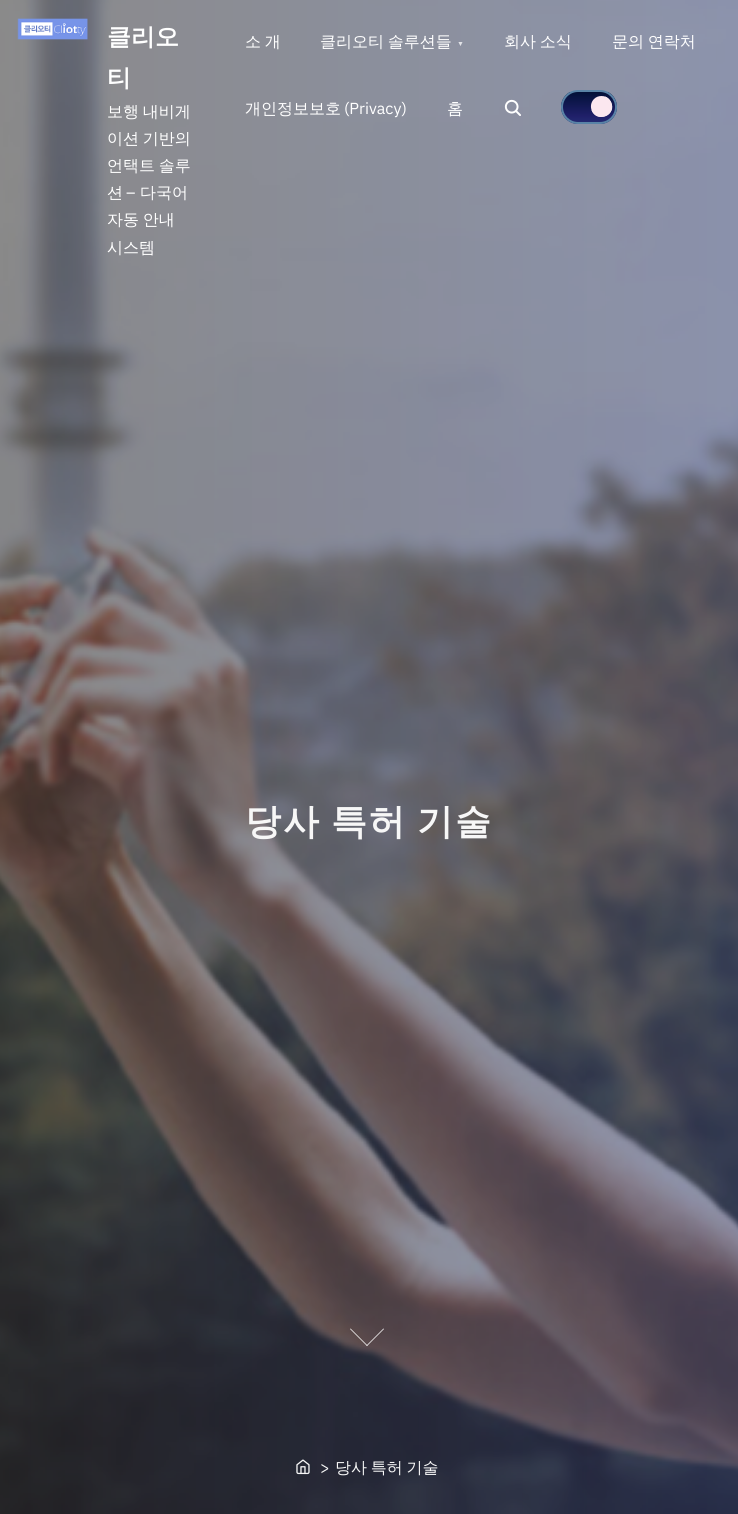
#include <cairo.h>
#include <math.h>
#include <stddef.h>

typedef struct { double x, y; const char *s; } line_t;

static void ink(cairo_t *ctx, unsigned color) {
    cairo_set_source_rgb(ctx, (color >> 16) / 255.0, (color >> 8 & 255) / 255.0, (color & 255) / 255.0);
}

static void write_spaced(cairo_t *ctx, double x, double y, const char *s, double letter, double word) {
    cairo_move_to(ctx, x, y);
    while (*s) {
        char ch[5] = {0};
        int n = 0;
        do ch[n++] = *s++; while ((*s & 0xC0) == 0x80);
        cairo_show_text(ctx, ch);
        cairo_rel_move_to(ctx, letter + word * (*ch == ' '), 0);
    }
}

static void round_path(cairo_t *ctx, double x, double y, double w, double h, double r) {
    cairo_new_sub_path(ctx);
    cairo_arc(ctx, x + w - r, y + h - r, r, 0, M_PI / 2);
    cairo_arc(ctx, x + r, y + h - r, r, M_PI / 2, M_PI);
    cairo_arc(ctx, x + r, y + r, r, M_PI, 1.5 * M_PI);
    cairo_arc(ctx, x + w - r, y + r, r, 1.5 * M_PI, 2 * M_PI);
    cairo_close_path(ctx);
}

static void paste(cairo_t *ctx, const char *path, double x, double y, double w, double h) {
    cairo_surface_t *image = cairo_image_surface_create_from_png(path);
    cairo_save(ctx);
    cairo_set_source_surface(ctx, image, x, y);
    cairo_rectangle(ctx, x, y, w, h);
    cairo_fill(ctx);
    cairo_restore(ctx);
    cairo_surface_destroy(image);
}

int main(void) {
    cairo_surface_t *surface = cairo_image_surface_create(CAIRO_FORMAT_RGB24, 738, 1514);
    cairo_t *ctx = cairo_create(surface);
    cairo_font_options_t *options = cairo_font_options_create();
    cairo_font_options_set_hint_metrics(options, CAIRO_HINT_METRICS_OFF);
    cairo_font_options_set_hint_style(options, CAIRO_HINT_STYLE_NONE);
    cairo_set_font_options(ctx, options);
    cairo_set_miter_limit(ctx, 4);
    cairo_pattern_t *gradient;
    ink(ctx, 0xFFFFFF);
    cairo_paint(ctx);
    paste(ctx, "media/3.png", 0, 0, 738, 1514);
    paste(ctx, "media/1.png", 17, 18, 71, 22);
    cairo_select_font_face(ctx, "WenQuanYi Zen Hei", CAIRO_FONT_SLANT_NORMAL, CAIRO_FONT_WEIGHT_BOLD);
    cairo_set_font_size(ctx, 24);
    ink(ctx, 0xFFFFFF);
    cairo_move_to(ctx, 107, 45);
    cairo_show_text(ctx, "클리오");
    cairo_move_to(ctx, 107, 86);
    cairo_show_text(ctx, "티");
    cairo_select_font_face(ctx, "WenQuanYi Zen Hei Medium", CAIRO_FONT_SLANT_NORMAL, CAIRO_FONT_WEIGHT_NORMAL);
    cairo_set_font_size(ctx, 16);
    {
        static const line_t items[] = {
            {107, 117, "보행 내비게"},
            {107, 144, "이션 기반의"},
            {107, 171, "언택트 솔루"},
        };
        for (size_t i = 0; i < sizeof items / sizeof *items; i++) {
            write_spaced(ctx, items[i].x, items[i].y, items[i].s, 0, -1);
        }
    }
    cairo_move_to(ctx, 107, 198);
    cairo_show_text(ctx, "션");
    cairo_select_font_face(ctx, "IBM Plex Sans", CAIRO_FONT_SLANT_NORMAL, CAIRO_FONT_WEIGHT_NORMAL);
    cairo_move_to(ctx, 126, 198);
    cairo_show_text(ctx, "–");
    cairo_select_font_face(ctx, "WenQuanYi Zen Hei Medium", CAIRO_FONT_SLANT_NORMAL, CAIRO_FONT_WEIGHT_NORMAL);
    cairo_move_to(ctx, 140, 198);
    cairo_show_text(ctx, "다국어");
    write_spaced(ctx, 107, 225, "자동 안내", 0, -1);
    cairo_move_to(ctx, 107, 253);
    cairo_show_text(ctx, "시스템");
    write_spaced(ctx, 245, 47, "소 개", 0, -1);
    write_spaced(ctx, 320, 47, "클리오티 솔루션들", 0, -1);
    cairo_select_font_face(ctx, "Liberation Serif", CAIRO_FONT_SLANT_NORMAL, CAIRO_FONT_WEIGHT_NORMAL);
    cairo_set_font_size(ctx, 7);
    ink(ctx, 0xE2E3E7);
    cairo_move_to(ctx, 457, 46);
    cairo_show_text(ctx, "▼");
    cairo_select_font_face(ctx, "WenQuanYi Zen Hei Medium", CAIRO_FONT_SLANT_NORMAL, CAIRO_FONT_WEIGHT_NORMAL);
    cairo_set_font_size(ctx, 16);
    ink(ctx, 0xFFFFFF);
    write_spaced(ctx, 504, 47, "회사 소식", 0, -1);
    write_spaced(ctx, 612, 47, "문의 연락처", 0, -1);
    cairo_move_to(ctx, 245, 114);
    cairo_show_text(ctx, "개인정보보호");
    cairo_select_font_face(ctx, "IBM Plex Sans", CAIRO_FONT_SLANT_NORMAL, CAIRO_FONT_WEIGHT_NORMAL);
    cairo_move_to(ctx, 344, 114);
    cairo_show_text(ctx, "(Privacy)");
    cairo_select_font_face(ctx, "WenQuanYi Zen Hei Medium", CAIRO_FONT_SLANT_NORMAL, CAIRO_FONT_WEIGHT_NORMAL);
    cairo_move_to(ctx, 447, 114);
    cairo_show_text(ctx, "홈");
    paste(ctx, "media/2.png", 504, 99, 17, 17);
    cairo_save(ctx);
    round_path(ctx, 561, 90, 56, 34, 17);
    cairo_clip(ctx);
    gradient = cairo_pattern_create_linear(589, 92, 589, 220);
    cairo_pattern_add_color_stop_rgba(gradient, 0, 0.008, 0.063, 0.216, 1);
    cairo_pattern_add_color_stop_rgba(gradient, 0.19, 0.125, 0.125, 0.416, 1);
    cairo_pattern_add_color_stop_rgba(gradient, 0.66, 0.255, 0.518, 0.694, 1);
    cairo_pattern_add_color_stop_rgba(gradient, 1, 0.384, 0.906, 0.969, 1);
    cairo_set_source(ctx, gradient);
    cairo_pattern_destroy(gradient);
    cairo_new_path(ctx);
    cairo_move_to(ctx, 561, 92);
    cairo_line_to(ctx, 617, 92);
    cairo_line_to(ctx, 617, 107);
    cairo_curve_to(ctx, 617, 116.5, 609.5, 124, 600, 124);
    cairo_line_to(ctx, 578, 124);
    cairo_curve_to(ctx, 568.5, 124, 561, 116.5, 561, 107);
    cairo_close_path(ctx);
    cairo_fill(ctx);
    cairo_restore(ctx);
    round_path(ctx, 562, 91, 54, 32, 16);
    ink(ctx, 0x5983A6);
    cairo_stroke(ctx);
    ink(ctx, 0xFFFFF7);
    cairo_new_path(ctx);
    cairo_move_to(ctx, 591.5, 110);
    cairo_curve_to(ctx, 597, 123.5, 617.5, 115, 611, 102);
    cairo_curve_to(ctx, 609.5, 99.5, 607.5, 97.5, 605, 96.5);
    cairo_curve_to(ctx, 608, 105.5, 600.5, 113.5, 591.5, 110);
    cairo_close_path(ctx);
    cairo_fill(ctx);
    ink(ctx, 0xFBE7EF);
    cairo_new_path(ctx);
    cairo_move_to(ctx, 601.5, 96);
    cairo_curve_to(ctx, 598.5, 96, 596, 97, 594, 99);
    cairo_curve_to(ctx, 587.5, 105.5, 592, 117.5, 601.5, 117);
    cairo_curve_to(ctx, 616, 116.5, 615, 96, 601.5, 96);
    cairo_close_path(ctx);
    cairo_fill(ctx);
    cairo_select_font_face(ctx, "WenQuanYi Zen Hei", CAIRO_FONT_SLANT_NORMAL, CAIRO_FONT_WEIGHT_BOLD);
    cairo_set_font_size(ctx, 36);
    ink(ctx, 0xF7F7F7);
    {
        static const line_t items[] = {
            {245, 834, "당사"},
            {331, 834, "특허"},
            {417, 834, "기술"},
        };
        for (size_t i = 0; i < sizeof items / sizeof *items; i++) {
            write_spaced(ctx, items[i].x, items[i].y, items[i].s, 2, 0);
        }
    }
    ink(ctx, 0xFFFFFF);
    cairo_new_path(ctx);
    cairo_move_to(ctx, 366.5, 1345.5);
    cairo_line_to(ctx, 383.5, 1328.5);
    cairo_line_to(ctx, 384, 1329);
    cairo_line_to(ctx, 367, 1346);
    cairo_close_path(ctx);
    cairo_fill(ctx);
    cairo_new_path(ctx);
    cairo_move_to(ctx, 350, 1329);
    cairo_line_to(ctx, 350.5, 1328.5);
    cairo_line_to(ctx, 367.5, 1345.5);
    cairo_line_to(ctx, 367, 1346);
    cairo_close_path(ctx);
    cairo_fill(ctx);
    paste(ctx, "media/4.png", 296, 1459, 14, 16);
    cairo_select_font_face(ctx, "IBM Plex Sans", CAIRO_FONT_SLANT_NORMAL, CAIRO_FONT_WEIGHT_NORMAL);
    cairo_set_font_size(ctx, 16);
    ink(ctx, 0xF7F7F7);
    cairo_move_to(ctx, 320, 1473);
    cairo_show_text(ctx, ">");
    cairo_select_font_face(ctx, "WenQuanYi Zen Hei Medium", CAIRO_FONT_SLANT_NORMAL, CAIRO_FONT_WEIGHT_NORMAL);
    write_spaced(ctx, 335, 1473, "당사 특허 기술", 0, -1);
    cairo_surface_write_to_png(surface, "image.png");
    cairo_font_options_destroy(options);
    cairo_destroy(ctx);
    cairo_surface_destroy(surface);
    return 0;
}
